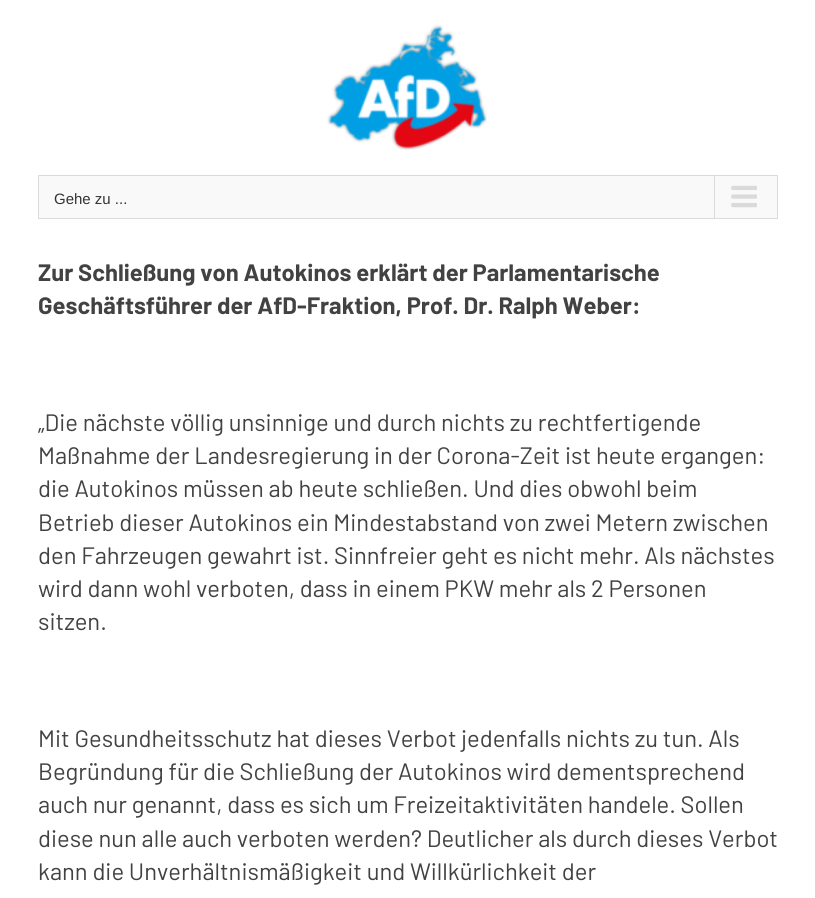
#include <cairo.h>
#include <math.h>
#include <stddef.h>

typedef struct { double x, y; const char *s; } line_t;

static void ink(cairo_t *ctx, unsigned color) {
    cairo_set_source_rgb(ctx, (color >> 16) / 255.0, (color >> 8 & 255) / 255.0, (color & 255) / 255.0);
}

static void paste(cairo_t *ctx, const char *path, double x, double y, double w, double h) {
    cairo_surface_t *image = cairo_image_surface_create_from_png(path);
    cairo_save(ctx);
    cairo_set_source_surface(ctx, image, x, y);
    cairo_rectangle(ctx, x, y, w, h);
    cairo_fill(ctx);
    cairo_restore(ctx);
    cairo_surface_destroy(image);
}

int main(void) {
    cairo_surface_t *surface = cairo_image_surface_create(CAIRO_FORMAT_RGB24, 815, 898);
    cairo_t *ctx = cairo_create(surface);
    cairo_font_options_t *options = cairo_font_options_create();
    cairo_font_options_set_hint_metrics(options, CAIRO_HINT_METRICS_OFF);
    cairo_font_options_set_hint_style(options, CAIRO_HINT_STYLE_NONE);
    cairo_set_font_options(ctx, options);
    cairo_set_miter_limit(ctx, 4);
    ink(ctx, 0xFFFFFF);
    cairo_paint(ctx);
    paste(ctx, "media/1.png", 327, 25, 160, 125);
    ink(ctx, 0xF9F9F9);
    cairo_rectangle(ctx, 38.5, 175.5, 739, 43);
    cairo_fill_preserve(ctx);
    ink(ctx, 0xDADADA);
    cairo_set_line_width(ctx, 1);
    cairo_stroke(ctx);
    cairo_select_font_face(ctx, "Liberation Sans", CAIRO_FONT_SLANT_NORMAL, CAIRO_FONT_WEIGHT_NORMAL);
    cairo_set_font_size(ctx, 15);
    ink(ctx, 0x333333);
    cairo_move_to(ctx, 54, 204);
    cairo_show_text(ctx, "Gehe zu ...");
    ink(ctx, 0xDADADA);
    cairo_rectangle(ctx, 714, 176, 1, 42);
    cairo_fill(ctx);
    paste(ctx, "media/2.png", 731, 185, 26, 23);
    cairo_select_font_face(ctx, "Barlow", CAIRO_FONT_SLANT_NORMAL, CAIRO_FONT_WEIGHT_BOLD);
    cairo_set_font_size(ctx, 23.75);
    ink(ctx, 0x424242);
    cairo_move_to(ctx, 38, 281);
    cairo_show_text(ctx, "Zur Schließung von Autokinos erklärt der Parlamentarische");
    cairo_move_to(ctx, 38, 314);
    cairo_show_text(ctx, "Geschäftsführer der AfD-Fraktion, Prof. Dr. Ralph Weber:");
    cairo_select_font_face(ctx, "Barlow", CAIRO_FONT_SLANT_NORMAL, CAIRO_FONT_WEIGHT_NORMAL);
    {
        static const line_t items[] = {
            {38, 431, "„Die nächste völlig unsinnige und durch nichts zu rechtfertigende"},
            {38, 464, "Maßnahme der Landesregierung in der Corona-Zeit ist heute ergangen:"},
            {38, 497, "die Autokinos müssen ab heute schließen. Und dies obwohl beim"},
            {38, 531, "Betrieb dieser Autokinos ein Mindestabstand von zwei Metern zwischen"},
            {38, 564, "den Fahrzeugen gewahrt ist. Sinnfreier geht es nicht mehr. Als nächstes"},
            {38, 597, "wird dann wohl verboten, dass in einem PKW mehr als 2 Personen"},
            {38, 630, "sitzen."},
            {38, 747, "Mit Gesundheitsschutz hat dieses Verbot jedenfalls nichts zu tun. Als"},
            {38, 780, "Begründung für die Schließung der Autokinos wird dementsprechend"},
            {38, 813, "auch nur genannt, dass es sich um Freizeitaktivitäten handele. Sollen"},
            {38, 847, "diese nun alle auch verboten werden? Deutlicher als durch dieses Verbot"},
            {38, 880, "kann die Unverhältnismäßigkeit und Willkürlichkeit der"},
        };
        for (size_t i = 0; i < sizeof items / sizeof *items; i++) {
            cairo_move_to(ctx, items[i].x, items[i].y);
            cairo_show_text(ctx, items[i].s);
        }
    }
    cairo_surface_write_to_png(surface, "image.png");
    cairo_font_options_destroy(options);
    cairo_destroy(ctx);
    cairo_surface_destroy(surface);
    return 0;
}
